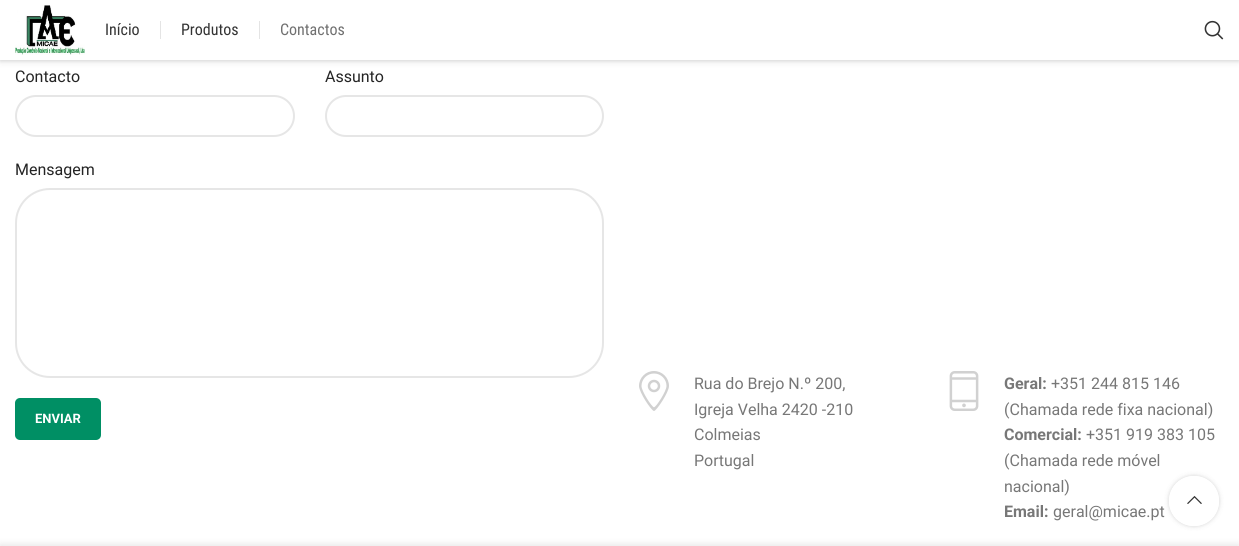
#include <cairo.h>
#include <math.h>
#include <stddef.h>

typedef struct { double x, y; const char *s; } line_t;

static void ink(cairo_t *ctx, unsigned color) {
    cairo_set_source_rgb(ctx, (color >> 16) / 255.0, (color >> 8 & 255) / 255.0, (color & 255) / 255.0);
}

static void round_path(cairo_t *ctx, double x, double y, double w, double h, double r) {
    cairo_new_sub_path(ctx);
    cairo_arc(ctx, x + w - r, y + h - r, r, 0, M_PI / 2);
    cairo_arc(ctx, x + r, y + h - r, r, M_PI / 2, M_PI);
    cairo_arc(ctx, x + r, y + r, r, M_PI, 1.5 * M_PI);
    cairo_arc(ctx, x + w - r, y + r, r, 1.5 * M_PI, 2 * M_PI);
    cairo_close_path(ctx);
}

static void blur_box(cairo_t *ctx, double x, double y, double w, double h, double r, double blur, double alpha) {
    cairo_push_group_with_content(ctx, CAIRO_CONTENT_ALPHA);
    cairo_set_operator(ctx, CAIRO_OPERATOR_SOURCE);
    for (int i = 15; i >= -15 && fmin(w, h) + blur * i / 3 > 0; i -= 2) {
        double e = blur * i / 6;
        cairo_set_source_rgba(ctx, 0, 0, 0, alpha * erfc((i - 1) / 8.5) / 2);
        round_path(ctx, x - e, y - e, w + 2 * e, h + 2 * e, fmax(0, fmin(r + e + blur * .6, fmin(w, h) / 2 + e)));
        cairo_fill(ctx);
    }
    cairo_pattern_t *soft = cairo_pop_group(ctx);
    cairo_mask(ctx, soft);
    cairo_pattern_destroy(soft);
}

static void paste(cairo_t *ctx, const char *path, double x, double y, double w, double h) {
    cairo_surface_t *image = cairo_image_surface_create_from_png(path);
    cairo_save(ctx);
    cairo_set_source_surface(ctx, image, x, y);
    cairo_rectangle(ctx, x, y, w, h);
    cairo_fill(ctx);
    cairo_restore(ctx);
    cairo_surface_destroy(image);
}

int main(void) {
    cairo_surface_t *surface = cairo_image_surface_create(CAIRO_FORMAT_RGB24, 1239, 546);
    cairo_t *ctx = cairo_create(surface);
    cairo_font_options_t *options = cairo_font_options_create();
    cairo_font_options_set_hint_metrics(options, CAIRO_HINT_METRICS_OFF);
    cairo_font_options_set_hint_style(options, CAIRO_HINT_STYLE_NONE);
    cairo_set_font_options(ctx, options);
    cairo_set_miter_limit(ctx, 4);
    ink(ctx, 0xFFFFFF);
    cairo_paint(ctx);
    ink(ctx, 0x000000);
    blur_box(ctx, 0, 1, 1239, 60, 0, 1.5, 0.1);
    blur_box(ctx, 0, 1, 1239, 60, 0, 4, 0.1);
    ink(ctx, 0xFFFFFF);
    cairo_rectangle(ctx, 0, 0, 1239, 60);
    cairo_fill(ctx);
    paste(ctx, "media/1.png", 15, 5, 70, 50);
    cairo_select_font_face(ctx, "Roboto Condensed", CAIRO_FONT_SLANT_NORMAL, CAIRO_FONT_WEIGHT_NORMAL);
    cairo_set_font_size(ctx, 16);
    ink(ctx, 0x333333);
    cairo_move_to(ctx, 105, 35);
    cairo_show_text(ctx, "Início");
    ink(ctx, 0xE4E4E4);
    cairo_rectangle(ctx, 160, 21, 1, 18);
    cairo_fill(ctx);
    ink(ctx, 0x333333);
    cairo_move_to(ctx, 181, 35);
    cairo_show_text(ctx, "Produtos");
    ink(ctx, 0xE4E4E4);
    cairo_rectangle(ctx, 259, 21, 1, 18);
    cairo_fill(ctx);
    ink(ctx, 0x707070);
    cairo_move_to(ctx, 280, 35);
    cairo_show_text(ctx, "Contactos");
    paste(ctx, "media/2.png", 1204, 20, 20, 20);
    cairo_select_font_face(ctx, "Roboto", CAIRO_FONT_SLANT_NORMAL, CAIRO_FONT_WEIGHT_NORMAL);
    ink(ctx, 0x242424);
    cairo_move_to(ctx, 15, 82);
    cairo_show_text(ctx, "Contacto");
    round_path(ctx, 16, 96, 278, 40, 20);
    ink(ctx, 0xE6E6E6);
    cairo_stroke(ctx);
    ink(ctx, 0x242424);
    cairo_move_to(ctx, 325, 82);
    cairo_show_text(ctx, "Assunto");
    round_path(ctx, 326, 96, 277, 40, 20);
    ink(ctx, 0xE6E6E6);
    cairo_stroke(ctx);
    ink(ctx, 0x242424);
    cairo_move_to(ctx, 15, 175);
    cairo_show_text(ctx, "Mensagem");
    round_path(ctx, 16, 189, 587, 188, 34);
    ink(ctx, 0xE6E6E6);
    cairo_stroke(ctx);
    ink(ctx, 0x008F64);
    round_path(ctx, 15, 398, 86, 42, 5);
    cairo_fill(ctx);
    cairo_select_font_face(ctx, "Roboto", CAIRO_FONT_SLANT_NORMAL, CAIRO_FONT_WEIGHT_BOLD);
    cairo_set_font_size(ctx, 13);
    ink(ctx, 0xFFFFFF);
    cairo_move_to(ctx, 35, 423);
    cairo_show_text(ctx, "ENVIAR");
    paste(ctx, "media/3.png", 639, 371, 30, 40);
    cairo_select_font_face(ctx, "Roboto", CAIRO_FONT_SLANT_NORMAL, CAIRO_FONT_WEIGHT_NORMAL);
    cairo_set_font_size(ctx, 16);
    ink(ctx, 0x777777);
    {
        static const line_t items[] = {
            {694, 389, "Rua do Brejo N.º 200,"},
            {694, 415, "Igreja Velha 2420 -210"},
            {694, 440, "Colmeias"},
            {694, 466, "Portugal"},
        };
        for (size_t i = 0; i < sizeof items / sizeof *items; i++) {
            cairo_move_to(ctx, items[i].x, items[i].y);
            cairo_show_text(ctx, items[i].s);
        }
    }
    paste(ctx, "media/4.png", 949, 371, 30, 40);
    cairo_select_font_face(ctx, "Roboto", CAIRO_FONT_SLANT_NORMAL, CAIRO_FONT_WEIGHT_BOLD);
    cairo_move_to(ctx, 1004, 389);
    cairo_show_text(ctx, "Geral:");
    cairo_select_font_face(ctx, "Roboto", CAIRO_FONT_SLANT_NORMAL, CAIRO_FONT_WEIGHT_NORMAL);
    cairo_move_to(ctx, 1051, 389);
    cairo_show_text(ctx, "+351 244 815 146");
    cairo_move_to(ctx, 1004, 415);
    cairo_show_text(ctx, "(Chamada rede fixa nacional)");
    cairo_select_font_face(ctx, "Roboto", CAIRO_FONT_SLANT_NORMAL, CAIRO_FONT_WEIGHT_BOLD);
    cairo_move_to(ctx, 1004, 440);
    cairo_show_text(ctx, "Comercial:");
    cairo_select_font_face(ctx, "Roboto", CAIRO_FONT_SLANT_NORMAL, CAIRO_FONT_WEIGHT_NORMAL);
    {
        static const line_t items[] = {
            {1086, 440, "+351 919 383 105"},
            {1004, 466, "(Chamada rede móvel"},
            {1004, 492, "nacional)"},
        };
        for (size_t i = 0; i < sizeof items / sizeof *items; i++) {
            cairo_move_to(ctx, items[i].x, items[i].y);
            cairo_show_text(ctx, items[i].s);
        }
    }
    cairo_select_font_face(ctx, "Roboto", CAIRO_FONT_SLANT_NORMAL, CAIRO_FONT_WEIGHT_BOLD);
    cairo_move_to(ctx, 1004, 517);
    cairo_show_text(ctx, "Email:");
    cairo_select_font_face(ctx, "Roboto", CAIRO_FONT_SLANT_NORMAL, CAIRO_FONT_WEIGHT_NORMAL);
    cairo_move_to(ctx, 1053, 517);
    cairo_show_text(ctx, "geral@micae.pt");
    cairo_save(ctx);
    cairo_set_fill_rule(ctx, CAIRO_FILL_RULE_EVEN_ODD);
    cairo_new_path(ctx);
    cairo_move_to(ctx, 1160, 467);
    cairo_line_to(ctx, 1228, 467);
    cairo_line_to(ctx, 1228, 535);
    cairo_line_to(ctx, 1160, 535);
    cairo_close_path(ctx);
    cairo_move_to(ctx, 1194, 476);
    cairo_curve_to(ctx, 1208, 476, 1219, 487, 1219, 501);
    cairo_curve_to(ctx, 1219, 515, 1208, 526, 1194, 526);
    cairo_curve_to(ctx, 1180, 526, 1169, 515, 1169, 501);
    cairo_curve_to(ctx, 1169, 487, 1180, 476, 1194, 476);
    cairo_close_path(ctx);
    cairo_clip(ctx);
    ink(ctx, 0x000000);
    blur_box(ctx, 1169, 476, 50, 50, 25, 2.5, 0.17);
    cairo_restore(ctx);
    cairo_set_source_rgba(ctx, 1, 1, 1, 0.9);
    cairo_arc(ctx, 1194, 501, 25, 0, 2 * M_PI);
    cairo_fill(ctx);
    paste(ctx, "media/5.png", 1187, 495, 15, 9);
    ink(ctx, 0x000000);
    blur_box(ctx, 0, 546, 1239, 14, 0, 4.5, 0.14);
    cairo_surface_write_to_png(surface, "image.png");
    cairo_font_options_destroy(options);
    cairo_destroy(ctx);
    cairo_surface_destroy(surface);
    return 0;
}
